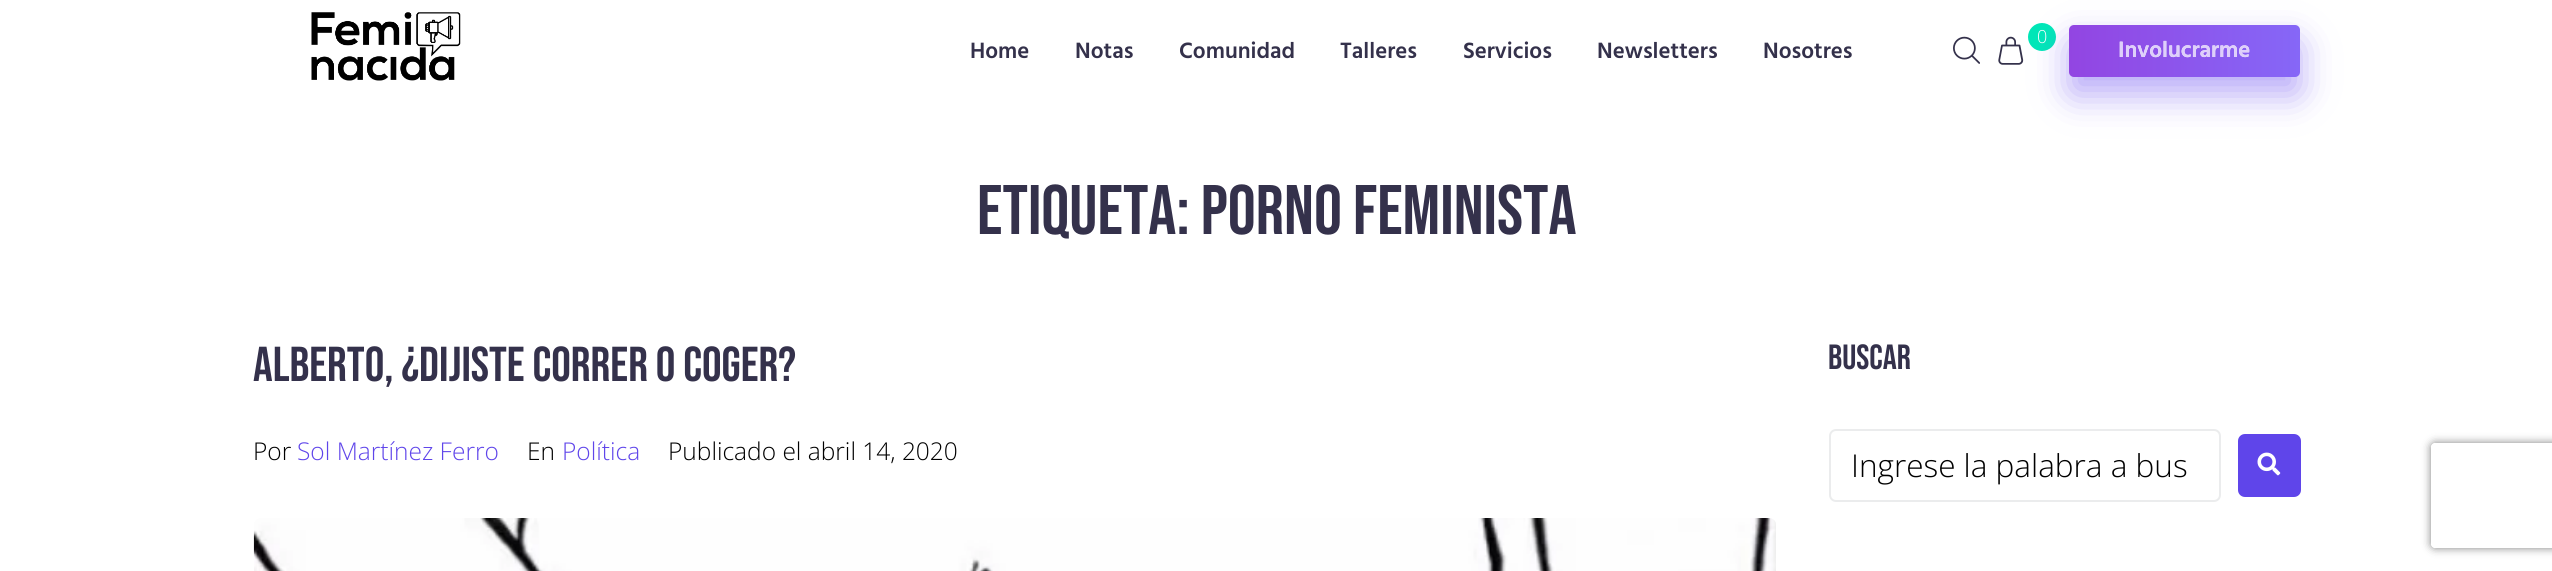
#include <cairo.h>
#include <math.h>
#include <stddef.h>

typedef struct { double x, y; const char *s; } line_t;

static void ink(cairo_t *ctx, unsigned color) {
    cairo_set_source_rgb(ctx, (color >> 16) / 255.0, (color >> 8 & 255) / 255.0, (color & 255) / 255.0);
}

static void round_path(cairo_t *ctx, double x, double y, double w, double h, double r) {
    cairo_new_sub_path(ctx);
    cairo_arc(ctx, x + w - r, y + h - r, r, 0, M_PI / 2);
    cairo_arc(ctx, x + r, y + h - r, r, M_PI / 2, M_PI);
    cairo_arc(ctx, x + r, y + r, r, M_PI, 1.5 * M_PI);
    cairo_arc(ctx, x + w - r, y + r, r, 1.5 * M_PI, 2 * M_PI);
    cairo_close_path(ctx);
}

static void blur_box(cairo_t *ctx, double x, double y, double w, double h, double r, double blur, double alpha) {
    cairo_push_group_with_content(ctx, CAIRO_CONTENT_ALPHA);
    cairo_set_operator(ctx, CAIRO_OPERATOR_SOURCE);
    for (int i = 15; i >= -15 && fmin(w, h) + blur * i / 3 > 0; i -= 2) {
        double e = blur * i / 6;
        cairo_set_source_rgba(ctx, 0, 0, 0, alpha * erfc((i - 1) / 8.5) / 2);
        round_path(ctx, x - e, y - e, w + 2 * e, h + 2 * e, fmax(0, fmin(r + e + blur * .6, fmin(w, h) / 2 + e)));
        cairo_fill(ctx);
    }
    cairo_pattern_t *soft = cairo_pop_group(ctx);
    cairo_mask(ctx, soft);
    cairo_pattern_destroy(soft);
}

static void paste(cairo_t *ctx, const char *path, double x, double y, double w, double h) {
    cairo_surface_t *image = cairo_image_surface_create_from_png(path);
    cairo_save(ctx);
    cairo_set_source_surface(ctx, image, x, y);
    cairo_rectangle(ctx, x, y, w, h);
    cairo_fill(ctx);
    cairo_restore(ctx);
    cairo_surface_destroy(image);
}

int main(void) {
    cairo_surface_t *surface = cairo_image_surface_create(CAIRO_FORMAT_RGB24, 2552, 571);
    cairo_t *ctx = cairo_create(surface);
    cairo_font_options_t *options = cairo_font_options_create();
    cairo_font_options_set_hint_metrics(options, CAIRO_HINT_METRICS_OFF);
    cairo_font_options_set_hint_style(options, CAIRO_HINT_STYLE_NONE);
    cairo_set_font_options(ctx, options);
    cairo_set_miter_limit(ctx, 4);
    cairo_pattern_t *gradient;
    ink(ctx, 0xFFFFFF);
    cairo_paint(ctx);
    paste(ctx, "media/1.png", 311, 12, 150, 69);
    cairo_select_font_face(ctx, "Hind SemiBold", CAIRO_FONT_SLANT_NORMAL, CAIRO_FONT_WEIGHT_NORMAL);
    cairo_set_font_size(ctx, 22.75);
    ink(ctx, 0x34314B);
    {
        static const line_t items[] = {
            {970, 58, "Home"},
            {1075, 58, "Notas"},
            {1179, 58, "Comunidad"},
            {1340, 58, "Talleres"},
            {1463, 58, "Servicios"},
            {1597, 58, "Newsletters"},
            {1763, 58, "Nosotres"},
        };
        for (size_t i = 0; i < sizeof items / sizeof *items; i++) {
            cairo_move_to(ctx, items[i].x, items[i].y);
            cairo_show_text(ctx, items[i].s);
        }
    }
    paste(ctx, "media/2.png", 1953, 36, 27, 28);
    paste(ctx, "media/3.png", 1998, 36, 26, 29);
    ink(ctx, 0x00E7B7);
    cairo_arc(ctx, 2042, 37, 14, 0, 2 * M_PI);
    cairo_fill(ctx);
    cairo_select_font_face(ctx, "Open Sans Light", CAIRO_FONT_SLANT_NORMAL, CAIRO_FONT_WEIGHT_NORMAL);
    cairo_set_font_size(ctx, 18);
    ink(ctx, 0xFFFFFF);
    cairo_move_to(ctx, 2037, 43);
    cairo_show_text(ctx, "0");
    ink(ctx, 0x7256F1);
    blur_box(ctx, 2069, 42, 231, 53, 5, 17.5, 0.5);
    gradient = cairo_pattern_create_linear(2069, 51, 2300, 51);
    cairo_pattern_add_color_stop_rgba(gradient, 0, 0.573, 0.271, 0.886, 1);
    cairo_pattern_add_color_stop_rgba(gradient, 1, 0.525, 0.404, 0.969, 1);
    cairo_set_source(ctx, gradient);
    cairo_pattern_destroy(gradient);
    round_path(ctx, 2069, 25, 231, 52, 5);
    cairo_fill(ctx);
    cairo_select_font_face(ctx, "Hind SemiBold", CAIRO_FONT_SLANT_NORMAL, CAIRO_FONT_WEIGHT_NORMAL);
    cairo_set_font_size(ctx, 22.75);
    ink(ctx, 0xFFFFFF);
    cairo_move_to(ctx, 2118, 57);
    cairo_show_text(ctx, "Involucrarme");
    ink(ctx, 0xDECFFA);
    cairo_move_to(ctx, 2118, 57);
    cairo_show_text(ctx, "Involucrarme");
    cairo_select_font_face(ctx, "Bebas Neue", CAIRO_FONT_SLANT_NORMAL, CAIRO_FONT_WEIGHT_NORMAL);
    cairo_set_font_size(ctx, 70);
    ink(ctx, 0x34314B);
    cairo_move_to(ctx, 977, 234);
    cairo_show_text(ctx, "Etiqueta: porno feminista");
    cairo_set_font_size(ctx, 49);
    cairo_move_to(ctx, 253, 381);
    cairo_show_text(ctx, "Alberto, ¿dijiste correr o coger?");
    cairo_select_font_face(ctx, "Open Sans Light", CAIRO_FONT_SLANT_NORMAL, CAIRO_FONT_WEIGHT_NORMAL);
    cairo_set_font_size(ctx, 24.5);
    ink(ctx, 0x000000);
    cairo_move_to(ctx, 253, 460);
    cairo_show_text(ctx, "Por");
    ink(ctx, 0x5F45EA);
    cairo_move_to(ctx, 297, 460);
    cairo_show_text(ctx, "Sol Martínez Ferro");
    ink(ctx, 0x000000);
    cairo_move_to(ctx, 527, 460);
    cairo_show_text(ctx, "En");
    ink(ctx, 0x5F45EA);
    cairo_move_to(ctx, 562, 460);
    cairo_show_text(ctx, "Política");
    ink(ctx, 0x000000);
    cairo_move_to(ctx, 668, 460);
    cairo_show_text(ctx, "Publicado el abril 14, 2020");
    paste(ctx, "media/4.png", 253, 518, 1523, 53);
    cairo_select_font_face(ctx, "Bebas Neue", CAIRO_FONT_SLANT_NORMAL, CAIRO_FONT_WEIGHT_NORMAL);
    cairo_set_font_size(ctx, 35);
    ink(ctx, 0x34314B);
    cairo_move_to(ctx, 1828, 369);
    cairo_show_text(ctx, "BUSCAR");
    round_path(ctx, 1830, 430, 390, 71, 6);
    ink(ctx, 0xEBECED);
    cairo_stroke(ctx);
    cairo_select_font_face(ctx, "Open Sans Light", CAIRO_FONT_SLANT_NORMAL, CAIRO_FONT_WEIGHT_NORMAL);
    cairo_set_font_size(ctx, 31.5);
    ink(ctx, 0x000000);
    cairo_move_to(ctx, 1851, 477);
    cairo_show_text(ctx, "Ingrese la palabra a bus");
    ink(ctx, 0x5F45EA);
    round_path(ctx, 2238, 434, 63, 63, 7);
    cairo_fill(ctx);
    paste(ctx, "media/5.png", 2257, 452, 24, 24);
    cairo_save(ctx);
    cairo_set_fill_rule(ctx, CAIRO_FILL_RULE_EVEN_ODD);
    cairo_new_path(ctx);
    cairo_move_to(ctx, 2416, 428);
    cairo_line_to(ctx, 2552, 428);
    cairo_line_to(ctx, 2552, 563);
    cairo_line_to(ctx, 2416, 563);
    cairo_close_path(ctx);
    cairo_move_to(ctx, 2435, 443);
    cairo_line_to(ctx, 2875, 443);
    cairo_curve_to(ctx, 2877, 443, 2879, 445, 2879, 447);
    cairo_line_to(ctx, 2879, 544);
    cairo_curve_to(ctx, 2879, 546, 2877, 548, 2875, 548);
    cairo_line_to(ctx, 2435, 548);
    cairo_curve_to(ctx, 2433, 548, 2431, 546, 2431, 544);
    cairo_line_to(ctx, 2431, 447);
    cairo_curve_to(ctx, 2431, 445, 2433, 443, 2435, 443);
    cairo_close_path(ctx);
    cairo_clip(ctx);
    ink(ctx, 0x808080);
    blur_box(ctx, 2431, 443, 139, 105, 4, 4.5, 1);
    cairo_restore(ctx);
    cairo_surface_write_to_png(surface, "image.png");
    cairo_font_options_destroy(options);
    cairo_destroy(ctx);
    cairo_surface_destroy(surface);
    return 0;
}
